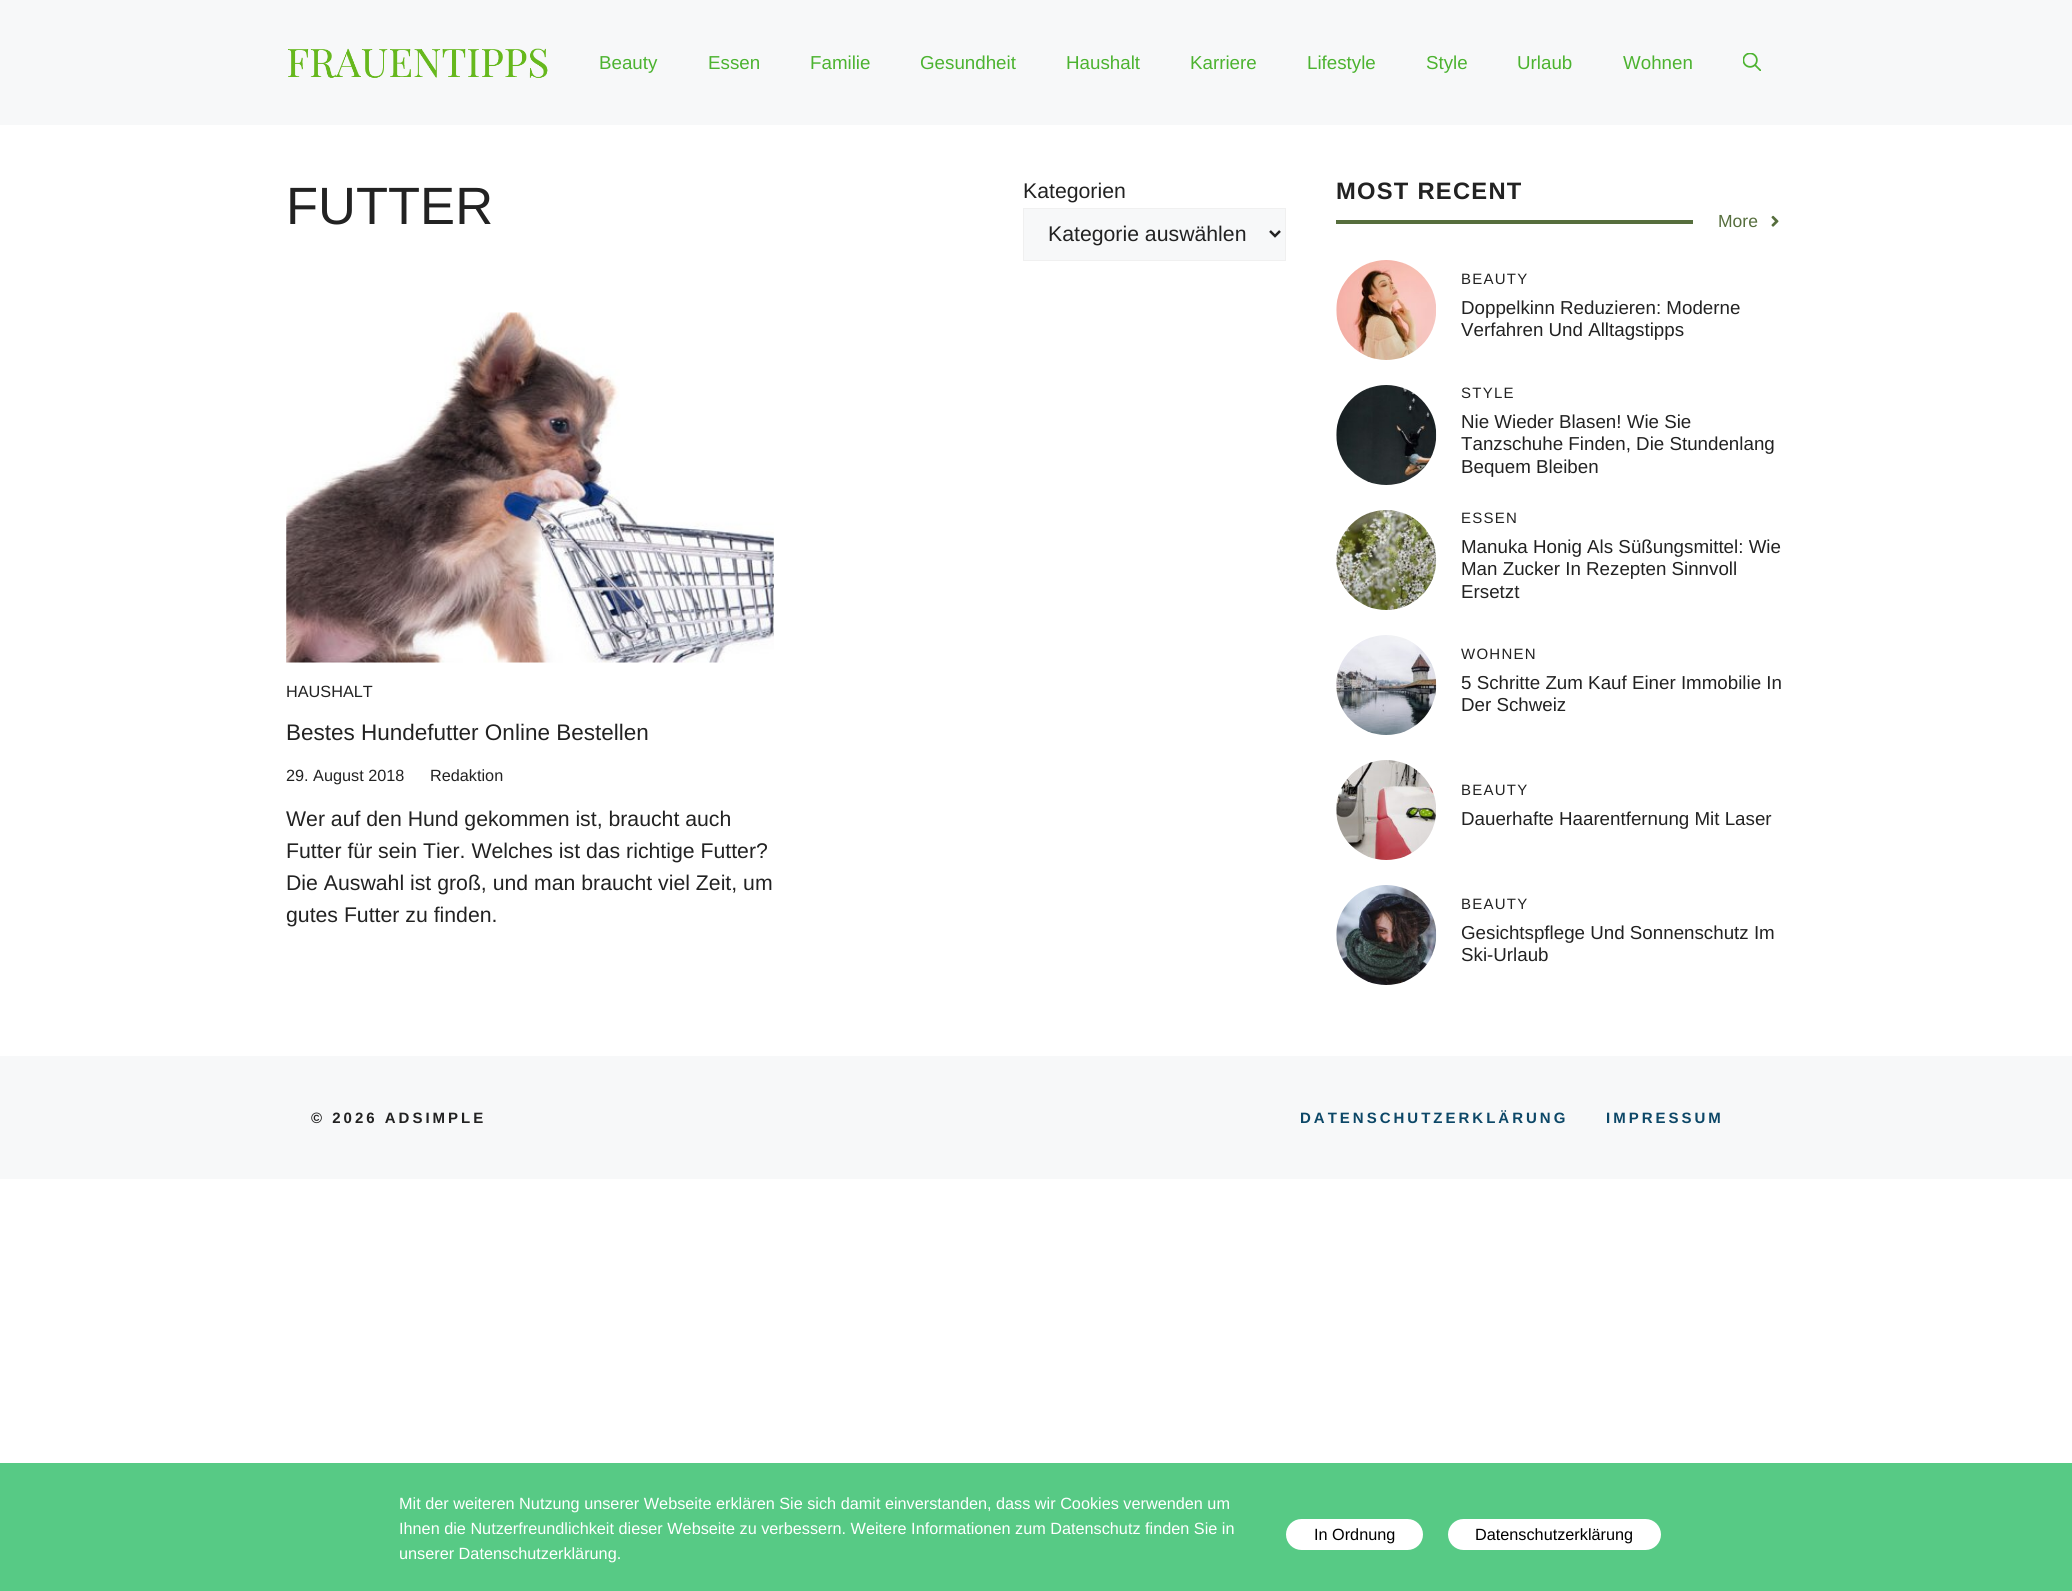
#include <cairo.h>
#include <math.h>
#include <stddef.h>

typedef struct { double x, y; const char *s; } line_t;

static void ink(cairo_t *ctx, unsigned color) {
    cairo_set_source_rgb(ctx, (color >> 16) / 255.0, (color >> 8 & 255) / 255.0, (color & 255) / 255.0);
}

static void write_spaced(cairo_t *ctx, double x, double y, const char *s, double letter, double word) {
    cairo_move_to(ctx, x, y);
    while (*s) {
        char ch[5] = {0};
        int n = 0;
        do ch[n++] = *s++; while ((*s & 0xC0) == 0x80);
        cairo_show_text(ctx, ch);
        cairo_rel_move_to(ctx, letter + word * (*ch == ' '), 0);
    }
}

static void round_path(cairo_t *ctx, double x, double y, double w, double h, double r) {
    cairo_new_sub_path(ctx);
    cairo_arc(ctx, x + w - r, y + h - r, r, 0, M_PI / 2);
    cairo_arc(ctx, x + r, y + h - r, r, M_PI / 2, M_PI);
    cairo_arc(ctx, x + r, y + r, r, M_PI, 1.5 * M_PI);
    cairo_arc(ctx, x + w - r, y + r, r, 1.5 * M_PI, 2 * M_PI);
    cairo_close_path(ctx);
}

static void paste(cairo_t *ctx, const char *path, double x, double y, double w, double h) {
    cairo_surface_t *image = cairo_image_surface_create_from_png(path);
    cairo_save(ctx);
    cairo_set_source_surface(ctx, image, x, y);
    cairo_rectangle(ctx, x, y, w, h);
    cairo_fill(ctx);
    cairo_restore(ctx);
    cairo_surface_destroy(image);
}

int main(void) {
    cairo_surface_t *surface = cairo_image_surface_create(CAIRO_FORMAT_RGB24, 2072, 1591);
    cairo_t *ctx = cairo_create(surface);
    cairo_font_options_t *options = cairo_font_options_create();
    cairo_font_options_set_hint_metrics(options, CAIRO_HINT_METRICS_OFF);
    cairo_font_options_set_hint_style(options, CAIRO_HINT_STYLE_NONE);
    cairo_set_font_options(ctx, options);
    cairo_set_miter_limit(ctx, 4);
    ink(ctx, 0xFFFFFF);
    cairo_paint(ctx);
    ink(ctx, 0xF7F8F9);
    cairo_rectangle(ctx, 0, 0, 2072, 125);
    cairo_fill(ctx);
    paste(ctx, "media/1.png", 288, 48, 260, 30);
    cairo_select_font_face(ctx, "Liberation Sans", CAIRO_FONT_SLANT_NORMAL, CAIRO_FONT_WEIGHT_NORMAL);
    cairo_set_font_size(ctx, 18.75);
    ink(ctx, 0x4CB330);
    {
        static const line_t items[] = {
            {599, 69, "Beauty"},
            {708, 69, "Essen"},
            {810, 69, "Familie"},
            {920, 69, "Gesundheit"},
            {1066, 69, "Haushalt"},
            {1190, 69, "Karriere"},
            {1307, 69, "Lifestyle"},
            {1426, 69, "Style"},
            {1517, 69, "Urlaub"},
            {1623, 69, "Wohnen"},
        };
        for (size_t i = 0; i < sizeof items / sizeof *items; i++) {
            cairo_move_to(ctx, items[i].x, items[i].y);
            cairo_show_text(ctx, items[i].s);
        }
    }
    paste(ctx, "media/2.png", 1743, 53, 18, 18);
    cairo_set_font_size(ctx, 52.5);
    ink(ctx, 0x222222);
    cairo_move_to(ctx, 286, 224);
    cairo_show_text(ctx, "FUTTER");
    cairo_set_font_size(ctx, 21.25);
    cairo_move_to(ctx, 1023, 198);
    cairo_show_text(ctx, "Kategorien");
    ink(ctx, 0xF7F8F9);
    cairo_rectangle(ctx, 1023.5, 208.5, 262, 52);
    cairo_fill_preserve(ctx);
    ink(ctx, 0xF0F0F0);
    cairo_set_line_width(ctx, 1);
    cairo_stroke(ctx);
    cairo_new_path(ctx);
    cairo_move_to(ctx, 1270, 231);
    cairo_line_to(ctx, 1275, 236);
    cairo_line_to(ctx, 1280, 231);
    ink(ctx, 0x222222);
    cairo_set_line_width(ctx, 2.5);
    cairo_stroke(ctx);
    cairo_move_to(ctx, 1048, 241);
    cairo_show_text(ctx, "Kategorie auswählen");
    paste(ctx, "media/3.png", 286, 312, 488, 351);
    cairo_set_font_size(ctx, 16.25);
    cairo_move_to(ctx, 286, 697);
    cairo_show_text(ctx, "HAUSHALT");
    cairo_set_font_size(ctx, 22.5);
    cairo_move_to(ctx, 286, 740);
    cairo_show_text(ctx, "Bestes Hundefutter Online Bestellen");
    cairo_set_font_size(ctx, 16.25);
    cairo_move_to(ctx, 286, 781);
    cairo_show_text(ctx, "29. August 2018");
    cairo_move_to(ctx, 430, 781);
    cairo_show_text(ctx, "Redaktion");
    cairo_set_font_size(ctx, 21.25);
    {
        static const line_t items[] = {
            {286, 826, "Wer auf den Hund gekommen ist, braucht auch"},
            {286, 858, "Futter für sein Tier. Welches ist das richtige Futter?"},
            {286, 890, "Die Auswahl ist groß, und man braucht viel Zeit, um"},
            {286, 922, "gutes Futter zu finden."},
        };
        for (size_t i = 0; i < sizeof items / sizeof *items; i++) {
            cairo_move_to(ctx, items[i].x, items[i].y);
            cairo_show_text(ctx, items[i].s);
        }
    }
    cairo_select_font_face(ctx, "Liberation Sans", CAIRO_FONT_SLANT_NORMAL, CAIRO_FONT_WEIGHT_BOLD);
    cairo_set_font_size(ctx, 23.75);
    write_spaced(ctx, 1336, 199, "MOST RECENT", 1.25, 0);
    ink(ctx, 0x566E3D);
    cairo_rectangle(ctx, 1336, 220, 357, 4);
    cairo_fill(ctx);
    cairo_select_font_face(ctx, "Liberation Sans", CAIRO_FONT_SLANT_NORMAL, CAIRO_FONT_WEIGHT_NORMAL);
    cairo_set_font_size(ctx, 17.5);
    cairo_move_to(ctx, 1718, 227);
    cairo_show_text(ctx, "More");
    paste(ctx, "media/4.png", 1771, 215, 8, 12);
    paste(ctx, "media/5.png", 1336, 260, 100, 100);
    cairo_set_font_size(ctx, 15);
    ink(ctx, 0x222222);
    write_spaced(ctx, 1461, 284, "BEAUTY", 1.25, 0);
    cairo_set_font_size(ctx, 18.75);
    cairo_move_to(ctx, 1461, 314);
    cairo_show_text(ctx, "Doppelkinn Reduzieren: Moderne");
    cairo_move_to(ctx, 1461, 336);
    cairo_show_text(ctx, "Verfahren Und Alltagstipps");
    paste(ctx, "media/6.png", 1336, 385, 101, 100);
    cairo_set_font_size(ctx, 15);
    write_spaced(ctx, 1461, 398, "STYLE", 1.25, 0);
    cairo_set_font_size(ctx, 18.75);
    {
        static const line_t items[] = {
            {1461, 428, "Nie Wieder Blasen! Wie Sie"},
            {1461, 450, "Tanzschuhe Finden, Die Stundenlang"},
            {1461, 473, "Bequem Bleiben"},
        };
        for (size_t i = 0; i < sizeof items / sizeof *items; i++) {
            cairo_move_to(ctx, items[i].x, items[i].y);
            cairo_show_text(ctx, items[i].s);
        }
    }
    paste(ctx, "media/7.png", 1336, 510, 101, 100);
    cairo_set_font_size(ctx, 15);
    write_spaced(ctx, 1461, 523, "ESSEN", 1.25, 0);
    cairo_set_font_size(ctx, 18.75);
    {
        static const line_t items[] = {
            {1461, 553, "Manuka Honig Als Süßungsmittel: Wie"},
            {1461, 575, "Man Zucker In Rezepten Sinnvoll"},
            {1461, 598, "Ersetzt"},
        };
        for (size_t i = 0; i < sizeof items / sizeof *items; i++) {
            cairo_move_to(ctx, items[i].x, items[i].y);
            cairo_show_text(ctx, items[i].s);
        }
    }
    paste(ctx, "media/8.png", 1336, 635, 101, 100);
    cairo_set_font_size(ctx, 15);
    write_spaced(ctx, 1461, 659, "WOHNEN", 1.25, 0);
    cairo_set_font_size(ctx, 18.75);
    cairo_move_to(ctx, 1461, 689);
    cairo_show_text(ctx, "5 Schritte Zum Kauf Einer Immobilie In");
    cairo_move_to(ctx, 1461, 711);
    cairo_show_text(ctx, "Der Schweiz");
    paste(ctx, "media/9.png", 1336, 760, 100, 100);
    cairo_set_font_size(ctx, 15);
    write_spaced(ctx, 1461, 795, "BEAUTY", 1.25, 0);
    cairo_set_font_size(ctx, 18.75);
    cairo_move_to(ctx, 1461, 825);
    cairo_show_text(ctx, "Dauerhafte Haarentfernung Mit Laser");
    paste(ctx, "media/10.png", 1336, 885, 101, 100);
    cairo_set_font_size(ctx, 15);
    write_spaced(ctx, 1461, 909, "BEAUTY", 1.25, 0);
    cairo_set_font_size(ctx, 18.75);
    cairo_move_to(ctx, 1461, 939);
    cairo_show_text(ctx, "Gesichtspflege Und Sonnenschutz Im");
    cairo_move_to(ctx, 1461, 961);
    cairo_show_text(ctx, "Ski-Urlaub");
    ink(ctx, 0xF7F8F9);
    cairo_rectangle(ctx, 0, 1056, 2072, 123);
    cairo_fill(ctx);
    cairo_select_font_face(ctx, "Liberation Sans", CAIRO_FONT_SLANT_NORMAL, CAIRO_FONT_WEIGHT_BOLD);
    cairo_set_font_size(ctx, 15);
    ink(ctx, 0x222222);
    write_spaced(ctx, 311, 1123, "© 2026 ADSIMPLE", 3, 0);
    ink(ctx, 0x0C4767);
    write_spaced(ctx, 1300, 1123, "DATENSCHUTZERKLÄRUNG", 3, 0);
    write_spaced(ctx, 1606, 1123, "IMPRESSUM", 3, 0);
    ink(ctx, 0x57CA85);
    cairo_rectangle(ctx, 0, 1463, 2072, 128);
    cairo_fill(ctx);
    cairo_select_font_face(ctx, "Liberation Sans", CAIRO_FONT_SLANT_NORMAL, CAIRO_FONT_WEIGHT_NORMAL);
    cairo_set_font_size(ctx, 16.25);
    ink(ctx, 0xFFFFFF);
    {
        static const line_t items[] = {
            {399, 1509, "Mit der weiteren Nutzung unserer Webseite erklären Sie sich damit einverstanden, dass wir Cookies verwenden um"},
            {399, 1534, "Ihnen die Nutzerfreundlichkeit dieser Webseite zu verbessern. Weitere Informationen zum Datenschutz finden Sie in"},
            {399, 1559, "unserer Datenschutzerklärung."},
        };
        for (size_t i = 0; i < sizeof items / sizeof *items; i++) {
            cairo_move_to(ctx, items[i].x, items[i].y);
            cairo_show_text(ctx, items[i].s);
        }
    }
    round_path(ctx, 1287.5, 1520.5, 134, 28, 14);
    cairo_fill_preserve(ctx);
    cairo_set_line_width(ctx, 3);
    cairo_stroke(ctx);
    ink(ctx, 0x000000);
    cairo_move_to(ctx, 1314, 1540);
    cairo_show_text(ctx, "In Ordnung");
    ink(ctx, 0xFFFFFF);
    round_path(ctx, 1449.5, 1520.5, 210, 28, 14);
    cairo_fill_preserve(ctx);
    cairo_stroke(ctx);
    ink(ctx, 0x000000);
    cairo_move_to(ctx, 1475, 1540);
    cairo_show_text(ctx, "Datenschutzerklärung");
    cairo_surface_write_to_png(surface, "image.png");
    cairo_font_options_destroy(options);
    cairo_destroy(ctx);
    cairo_surface_destroy(surface);
    return 0;
}
